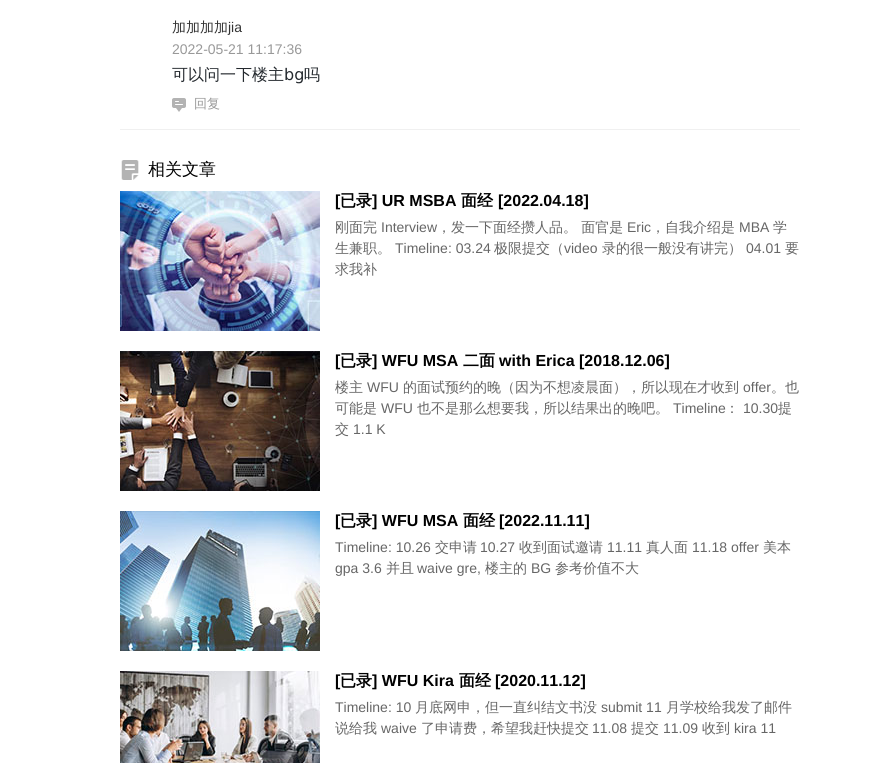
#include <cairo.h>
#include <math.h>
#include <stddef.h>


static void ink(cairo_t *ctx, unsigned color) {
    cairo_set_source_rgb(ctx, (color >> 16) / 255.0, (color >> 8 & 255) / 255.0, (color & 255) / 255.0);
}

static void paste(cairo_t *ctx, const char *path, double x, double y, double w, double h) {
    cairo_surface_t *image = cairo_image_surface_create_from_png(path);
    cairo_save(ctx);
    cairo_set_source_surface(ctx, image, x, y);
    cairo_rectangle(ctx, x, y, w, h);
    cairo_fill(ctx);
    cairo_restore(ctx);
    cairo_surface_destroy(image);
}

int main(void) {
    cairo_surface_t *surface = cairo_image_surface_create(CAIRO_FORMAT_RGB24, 886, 763);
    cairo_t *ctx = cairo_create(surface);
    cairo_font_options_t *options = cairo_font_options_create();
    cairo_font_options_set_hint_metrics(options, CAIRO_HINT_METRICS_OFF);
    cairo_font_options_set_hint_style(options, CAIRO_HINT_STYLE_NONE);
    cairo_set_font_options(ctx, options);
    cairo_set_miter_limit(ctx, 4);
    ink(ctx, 0xFFFFFF);
    cairo_paint(ctx);
    ink(ctx, 0xF0F0F0);
    cairo_rectangle(ctx, 120, 129, 680, 1);
    cairo_fill(ctx);
    cairo_select_font_face(ctx, "WenQuanYi Zen Hei Medium", CAIRO_FONT_SLANT_NORMAL, CAIRO_FONT_WEIGHT_NORMAL);
    cairo_set_font_size(ctx, 14);
    ink(ctx, 0x333333);
    cairo_move_to(ctx, 172, 32);
    cairo_show_text(ctx, "加加加加");
    cairo_select_font_face(ctx, "Liberation Sans", CAIRO_FONT_SLANT_NORMAL, CAIRO_FONT_WEIGHT_NORMAL);
    cairo_move_to(ctx, 228, 32);
    cairo_show_text(ctx, "jia");
    ink(ctx, 0x999999);
    cairo_move_to(ctx, 172, 54);
    cairo_show_text(ctx, "2022-05-21 11:17:36");
    cairo_select_font_face(ctx, "WenQuanYi Zen Hei Medium", CAIRO_FONT_SLANT_NORMAL, CAIRO_FONT_WEIGHT_NORMAL);
    cairo_set_font_size(ctx, 16);
    ink(ctx, 0x24292E);
    cairo_move_to(ctx, 172, 80);
    cairo_show_text(ctx, "可以问一下楼主");
    cairo_select_font_face(ctx, "DejaVu Sans", CAIRO_FONT_SLANT_NORMAL, CAIRO_FONT_WEIGHT_NORMAL);
    cairo_move_to(ctx, 284, 80);
    cairo_show_text(ctx, "bg");
    cairo_select_font_face(ctx, "WenQuanYi Zen Hei Medium", CAIRO_FONT_SLANT_NORMAL, CAIRO_FONT_WEIGHT_NORMAL);
    cairo_move_to(ctx, 304, 80);
    cairo_show_text(ctx, "吗");
    paste(ctx, "media/1.png", 172, 98, 14, 14);
    cairo_set_font_size(ctx, 13);
    ink(ctx, 0x999999);
    cairo_move_to(ctx, 194, 108);
    cairo_show_text(ctx, "回复");
    paste(ctx, "media/2.png", 121, 160, 18, 20);
    cairo_set_font_size(ctx, 17);
    ink(ctx, 0x000000);
    cairo_move_to(ctx, 148, 175);
    cairo_show_text(ctx, "相关文章");
    paste(ctx, "media/3.png", 120, 191, 200, 140);
    cairo_select_font_face(ctx, "Liberation Sans", CAIRO_FONT_SLANT_NORMAL, CAIRO_FONT_WEIGHT_BOLD);
    cairo_set_font_size(ctx, 16);
    cairo_move_to(ctx, 335, 206);
    cairo_show_text(ctx, "[");
    cairo_select_font_face(ctx, "WenQuanYi Zen Hei", CAIRO_FONT_SLANT_NORMAL, CAIRO_FONT_WEIGHT_BOLD);
    cairo_move_to(ctx, 340, 206);
    cairo_show_text(ctx, "已录");
    cairo_select_font_face(ctx, "Liberation Sans", CAIRO_FONT_SLANT_NORMAL, CAIRO_FONT_WEIGHT_BOLD);
    cairo_move_to(ctx, 372, 206);
    cairo_show_text(ctx, "] UR MSBA");
    cairo_select_font_face(ctx, "WenQuanYi Zen Hei", CAIRO_FONT_SLANT_NORMAL, CAIRO_FONT_WEIGHT_BOLD);
    cairo_move_to(ctx, 461, 206);
    cairo_show_text(ctx, "面经");
    cairo_select_font_face(ctx, "Liberation Sans", CAIRO_FONT_SLANT_NORMAL, CAIRO_FONT_WEIGHT_BOLD);
    cairo_move_to(ctx, 498, 206);
    cairo_show_text(ctx, "[2022.04.18]");
    cairo_select_font_face(ctx, "WenQuanYi Zen Hei Medium", CAIRO_FONT_SLANT_NORMAL, CAIRO_FONT_WEIGHT_NORMAL);
    cairo_set_font_size(ctx, 14);
    ink(ctx, 0x666666);
    cairo_move_to(ctx, 335, 232);
    cairo_show_text(ctx, "刚面完");
    cairo_select_font_face(ctx, "Liberation Sans", CAIRO_FONT_SLANT_NORMAL, CAIRO_FONT_WEIGHT_NORMAL);
    cairo_move_to(ctx, 381, 232);
    cairo_show_text(ctx, "Interview");
    cairo_select_font_face(ctx, "WenQuanYi Zen Hei Medium", CAIRO_FONT_SLANT_NORMAL, CAIRO_FONT_WEIGHT_NORMAL);
    cairo_move_to(ctx, 437, 232);
    cairo_show_text(ctx, "，发一下面经攒人品。 面官是");
    cairo_select_font_face(ctx, "Liberation Sans", CAIRO_FONT_SLANT_NORMAL, CAIRO_FONT_WEIGHT_NORMAL);
    cairo_move_to(ctx, 627, 232);
    cairo_show_text(ctx, "Eric");
    cairo_select_font_face(ctx, "WenQuanYi Zen Hei Medium", CAIRO_FONT_SLANT_NORMAL, CAIRO_FONT_WEIGHT_NORMAL);
    cairo_move_to(ctx, 651, 232);
    cairo_show_text(ctx, "，自我介绍是");
    cairo_select_font_face(ctx, "Liberation Sans", CAIRO_FONT_SLANT_NORMAL, CAIRO_FONT_WEIGHT_NORMAL);
    cairo_move_to(ctx, 739, 232);
    cairo_show_text(ctx, "MBA");
    cairo_select_font_face(ctx, "WenQuanYi Zen Hei Medium", CAIRO_FONT_SLANT_NORMAL, CAIRO_FONT_WEIGHT_NORMAL);
    cairo_move_to(ctx, 773, 232);
    cairo_show_text(ctx, "学");
    cairo_move_to(ctx, 335, 253);
    cairo_show_text(ctx, "生兼职。");
    cairo_select_font_face(ctx, "Liberation Sans", CAIRO_FONT_SLANT_NORMAL, CAIRO_FONT_WEIGHT_NORMAL);
    cairo_move_to(ctx, 395, 253);
    cairo_show_text(ctx, "Timeline: 03.24");
    cairo_select_font_face(ctx, "WenQuanYi Zen Hei Medium", CAIRO_FONT_SLANT_NORMAL, CAIRO_FONT_WEIGHT_NORMAL);
    cairo_move_to(ctx, 494, 253);
    cairo_show_text(ctx, "极限提交（");
    cairo_select_font_face(ctx, "Liberation Sans", CAIRO_FONT_SLANT_NORMAL, CAIRO_FONT_WEIGHT_NORMAL);
    cairo_move_to(ctx, 564, 253);
    cairo_show_text(ctx, "video");
    cairo_select_font_face(ctx, "WenQuanYi Zen Hei Medium", CAIRO_FONT_SLANT_NORMAL, CAIRO_FONT_WEIGHT_NORMAL);
    cairo_move_to(ctx, 602, 253);
    cairo_show_text(ctx, "录的很一般没有讲完）");
    cairo_select_font_face(ctx, "Liberation Sans", CAIRO_FONT_SLANT_NORMAL, CAIRO_FONT_WEIGHT_NORMAL);
    cairo_move_to(ctx, 746, 253);
    cairo_show_text(ctx, "04.01");
    cairo_select_font_face(ctx, "WenQuanYi Zen Hei Medium", CAIRO_FONT_SLANT_NORMAL, CAIRO_FONT_WEIGHT_NORMAL);
    cairo_move_to(ctx, 785, 253);
    cairo_show_text(ctx, "要");
    cairo_move_to(ctx, 335, 274);
    cairo_show_text(ctx, "求我补");
    paste(ctx, "media/4.png", 120, 351, 200, 140);
    cairo_select_font_face(ctx, "Liberation Sans", CAIRO_FONT_SLANT_NORMAL, CAIRO_FONT_WEIGHT_BOLD);
    cairo_set_font_size(ctx, 16);
    ink(ctx, 0x000000);
    cairo_move_to(ctx, 335, 366);
    cairo_show_text(ctx, "[");
    cairo_select_font_face(ctx, "WenQuanYi Zen Hei", CAIRO_FONT_SLANT_NORMAL, CAIRO_FONT_WEIGHT_BOLD);
    cairo_move_to(ctx, 340, 366);
    cairo_show_text(ctx, "已录");
    cairo_select_font_face(ctx, "Liberation Sans", CAIRO_FONT_SLANT_NORMAL, CAIRO_FONT_WEIGHT_BOLD);
    cairo_move_to(ctx, 372, 366);
    cairo_show_text(ctx, "] WFU MSA");
    cairo_select_font_face(ctx, "WenQuanYi Zen Hei", CAIRO_FONT_SLANT_NORMAL, CAIRO_FONT_WEIGHT_BOLD);
    cairo_move_to(ctx, 463, 366);
    cairo_show_text(ctx, "二面");
    cairo_select_font_face(ctx, "Liberation Sans", CAIRO_FONT_SLANT_NORMAL, CAIRO_FONT_WEIGHT_BOLD);
    cairo_move_to(ctx, 499, 366);
    cairo_show_text(ctx, "with Erica [2018.12.06]");
    cairo_select_font_face(ctx, "WenQuanYi Zen Hei Medium", CAIRO_FONT_SLANT_NORMAL, CAIRO_FONT_WEIGHT_NORMAL);
    cairo_set_font_size(ctx, 14);
    ink(ctx, 0x666666);
    cairo_move_to(ctx, 335, 392);
    cairo_show_text(ctx, "楼主");
    cairo_select_font_face(ctx, "Liberation Sans", CAIRO_FONT_SLANT_NORMAL, CAIRO_FONT_WEIGHT_NORMAL);
    cairo_move_to(ctx, 367, 392);
    cairo_show_text(ctx, "WFU");
    cairo_select_font_face(ctx, "WenQuanYi Zen Hei Medium", CAIRO_FONT_SLANT_NORMAL, CAIRO_FONT_WEIGHT_NORMAL);
    cairo_move_to(ctx, 403, 392);
    cairo_show_text(ctx, "的面试预约的晚（因为不想凌晨面），所以现在才收到");
    cairo_select_font_face(ctx, "Liberation Sans", CAIRO_FONT_SLANT_NORMAL, CAIRO_FONT_WEIGHT_NORMAL);
    cairo_move_to(ctx, 743, 392);
    cairo_show_text(ctx, "offer");
    cairo_select_font_face(ctx, "WenQuanYi Zen Hei Medium", CAIRO_FONT_SLANT_NORMAL, CAIRO_FONT_WEIGHT_NORMAL);
    cairo_move_to(ctx, 771, 392);
    cairo_show_text(ctx, "。也");
    cairo_move_to(ctx, 335, 413);
    cairo_show_text(ctx, "可能是");
    cairo_select_font_face(ctx, "Liberation Sans", CAIRO_FONT_SLANT_NORMAL, CAIRO_FONT_WEIGHT_NORMAL);
    cairo_move_to(ctx, 381, 413);
    cairo_show_text(ctx, "WFU");
    cairo_select_font_face(ctx, "WenQuanYi Zen Hei Medium", CAIRO_FONT_SLANT_NORMAL, CAIRO_FONT_WEIGHT_NORMAL);
    cairo_move_to(ctx, 417, 413);
    cairo_show_text(ctx, "也不是那么想要我，所以结果出的晚吧。");
    cairo_select_font_face(ctx, "Liberation Sans", CAIRO_FONT_SLANT_NORMAL, CAIRO_FONT_WEIGHT_NORMAL);
    cairo_move_to(ctx, 673, 413);
    cairo_show_text(ctx, "Timeline");
    cairo_select_font_face(ctx, "WenQuanYi Zen Hei Medium", CAIRO_FONT_SLANT_NORMAL, CAIRO_FONT_WEIGHT_NORMAL);
    cairo_move_to(ctx, 725, 413);
    cairo_show_text(ctx, "：");
    cairo_select_font_face(ctx, "Liberation Sans", CAIRO_FONT_SLANT_NORMAL, CAIRO_FONT_WEIGHT_NORMAL);
    cairo_move_to(ctx, 743, 413);
    cairo_show_text(ctx, "10.30");
    cairo_select_font_face(ctx, "WenQuanYi Zen Hei Medium", CAIRO_FONT_SLANT_NORMAL, CAIRO_FONT_WEIGHT_NORMAL);
    cairo_move_to(ctx, 778, 413);
    cairo_show_text(ctx, "提");
    cairo_move_to(ctx, 335, 434);
    cairo_show_text(ctx, "交");
    cairo_select_font_face(ctx, "Liberation Sans", CAIRO_FONT_SLANT_NORMAL, CAIRO_FONT_WEIGHT_NORMAL);
    cairo_move_to(ctx, 353, 434);
    cairo_show_text(ctx, "1.1 K");
    paste(ctx, "media/5.png", 120, 511, 200, 140);
    cairo_select_font_face(ctx, "Liberation Sans", CAIRO_FONT_SLANT_NORMAL, CAIRO_FONT_WEIGHT_BOLD);
    cairo_set_font_size(ctx, 16);
    ink(ctx, 0x000000);
    cairo_move_to(ctx, 335, 526);
    cairo_show_text(ctx, "[");
    cairo_select_font_face(ctx, "WenQuanYi Zen Hei", CAIRO_FONT_SLANT_NORMAL, CAIRO_FONT_WEIGHT_BOLD);
    cairo_move_to(ctx, 340, 526);
    cairo_show_text(ctx, "已录");
    cairo_select_font_face(ctx, "Liberation Sans", CAIRO_FONT_SLANT_NORMAL, CAIRO_FONT_WEIGHT_BOLD);
    cairo_move_to(ctx, 372, 526);
    cairo_show_text(ctx, "] WFU MSA");
    cairo_select_font_face(ctx, "WenQuanYi Zen Hei", CAIRO_FONT_SLANT_NORMAL, CAIRO_FONT_WEIGHT_BOLD);
    cairo_move_to(ctx, 463, 526);
    cairo_show_text(ctx, "面经");
    cairo_select_font_face(ctx, "Liberation Sans", CAIRO_FONT_SLANT_NORMAL, CAIRO_FONT_WEIGHT_BOLD);
    cairo_move_to(ctx, 499, 526);
    cairo_show_text(ctx, "[2022.11.11]");
    cairo_select_font_face(ctx, "Liberation Sans", CAIRO_FONT_SLANT_NORMAL, CAIRO_FONT_WEIGHT_NORMAL);
    cairo_set_font_size(ctx, 14);
    ink(ctx, 0x666666);
    cairo_move_to(ctx, 335, 552);
    cairo_show_text(ctx, "Timeline: 10.26");
    cairo_select_font_face(ctx, "WenQuanYi Zen Hei Medium", CAIRO_FONT_SLANT_NORMAL, CAIRO_FONT_WEIGHT_NORMAL);
    cairo_move_to(ctx, 435, 552);
    cairo_show_text(ctx, "交申请");
    cairo_select_font_face(ctx, "Liberation Sans", CAIRO_FONT_SLANT_NORMAL, CAIRO_FONT_WEIGHT_NORMAL);
    cairo_move_to(ctx, 480, 552);
    cairo_show_text(ctx, "10.27");
    cairo_select_font_face(ctx, "WenQuanYi Zen Hei Medium", CAIRO_FONT_SLANT_NORMAL, CAIRO_FONT_WEIGHT_NORMAL);
    cairo_move_to(ctx, 519, 552);
    cairo_show_text(ctx, "收到面试邀请");
    cairo_select_font_face(ctx, "Liberation Sans", CAIRO_FONT_SLANT_NORMAL, CAIRO_FONT_WEIGHT_NORMAL);
    cairo_move_to(ctx, 607, 552);
    cairo_show_text(ctx, "11.11");
    cairo_select_font_face(ctx, "WenQuanYi Zen Hei Medium", CAIRO_FONT_SLANT_NORMAL, CAIRO_FONT_WEIGHT_NORMAL);
    cairo_move_to(ctx, 646, 552);
    cairo_show_text(ctx, "真人面");
    cairo_select_font_face(ctx, "Liberation Sans", CAIRO_FONT_SLANT_NORMAL, CAIRO_FONT_WEIGHT_NORMAL);
    cairo_move_to(ctx, 692, 552);
    cairo_show_text(ctx, "11.18 offer");
    cairo_select_font_face(ctx, "WenQuanYi Zen Hei Medium", CAIRO_FONT_SLANT_NORMAL, CAIRO_FONT_WEIGHT_NORMAL);
    cairo_move_to(ctx, 763, 552);
    cairo_show_text(ctx, "美本");
    cairo_select_font_face(ctx, "Liberation Sans", CAIRO_FONT_SLANT_NORMAL, CAIRO_FONT_WEIGHT_NORMAL);
    cairo_move_to(ctx, 335, 573);
    cairo_show_text(ctx, "gpa 3.6");
    cairo_select_font_face(ctx, "WenQuanYi Zen Hei Medium", CAIRO_FONT_SLANT_NORMAL, CAIRO_FONT_WEIGHT_NORMAL);
    cairo_move_to(ctx, 386, 573);
    cairo_show_text(ctx, "并且");
    cairo_select_font_face(ctx, "Liberation Sans", CAIRO_FONT_SLANT_NORMAL, CAIRO_FONT_WEIGHT_NORMAL);
    cairo_move_to(ctx, 417, 573);
    cairo_show_text(ctx, "waive gre,");
    cairo_select_font_face(ctx, "WenQuanYi Zen Hei Medium", CAIRO_FONT_SLANT_NORMAL, CAIRO_FONT_WEIGHT_NORMAL);
    cairo_move_to(ctx, 485, 573);
    cairo_show_text(ctx, "楼主的");
    cairo_select_font_face(ctx, "Liberation Sans", CAIRO_FONT_SLANT_NORMAL, CAIRO_FONT_WEIGHT_NORMAL);
    cairo_move_to(ctx, 531, 573);
    cairo_show_text(ctx, "BG");
    cairo_select_font_face(ctx, "WenQuanYi Zen Hei Medium", CAIRO_FONT_SLANT_NORMAL, CAIRO_FONT_WEIGHT_NORMAL);
    cairo_move_to(ctx, 555, 573);
    cairo_show_text(ctx, "参考价值不大");
    paste(ctx, "media/6.png", 120, 671, 200, 92);
    cairo_select_font_face(ctx, "Liberation Sans", CAIRO_FONT_SLANT_NORMAL, CAIRO_FONT_WEIGHT_BOLD);
    cairo_set_font_size(ctx, 16);
    ink(ctx, 0x000000);
    cairo_move_to(ctx, 335, 686);
    cairo_show_text(ctx, "[");
    cairo_select_font_face(ctx, "WenQuanYi Zen Hei", CAIRO_FONT_SLANT_NORMAL, CAIRO_FONT_WEIGHT_BOLD);
    cairo_move_to(ctx, 340, 686);
    cairo_show_text(ctx, "已录");
    cairo_select_font_face(ctx, "Liberation Sans", CAIRO_FONT_SLANT_NORMAL, CAIRO_FONT_WEIGHT_BOLD);
    cairo_move_to(ctx, 372, 686);
    cairo_show_text(ctx, "] WFU Kira");
    cairo_select_font_face(ctx, "WenQuanYi Zen Hei", CAIRO_FONT_SLANT_NORMAL, CAIRO_FONT_WEIGHT_BOLD);
    cairo_move_to(ctx, 459, 686);
    cairo_show_text(ctx, "面经");
    cairo_select_font_face(ctx, "Liberation Sans", CAIRO_FONT_SLANT_NORMAL, CAIRO_FONT_WEIGHT_BOLD);
    cairo_move_to(ctx, 495, 686);
    cairo_show_text(ctx, "[2020.11.12]");
    cairo_select_font_face(ctx, "Liberation Sans", CAIRO_FONT_SLANT_NORMAL, CAIRO_FONT_WEIGHT_NORMAL);
    cairo_set_font_size(ctx, 14);
    ink(ctx, 0x666666);
    cairo_move_to(ctx, 335, 712);
    cairo_show_text(ctx, "Timeline: 10");
    cairo_select_font_face(ctx, "WenQuanYi Zen Hei Medium", CAIRO_FONT_SLANT_NORMAL, CAIRO_FONT_WEIGHT_NORMAL);
    cairo_move_to(ctx, 415, 712);
    cairo_show_text(ctx, "月底网申，但一直纠结文书没");
    cairo_select_font_face(ctx, "Liberation Sans", CAIRO_FONT_SLANT_NORMAL, CAIRO_FONT_WEIGHT_NORMAL);
    cairo_move_to(ctx, 601, 712);
    cairo_show_text(ctx, "submit 11");
    cairo_select_font_face(ctx, "WenQuanYi Zen Hei Medium", CAIRO_FONT_SLANT_NORMAL, CAIRO_FONT_WEIGHT_NORMAL);
    cairo_move_to(ctx, 666, 712);
    cairo_show_text(ctx, "月学校给我发了邮件");
    cairo_move_to(ctx, 335, 733);
    cairo_show_text(ctx, "说给我");
    cairo_select_font_face(ctx, "Liberation Sans", CAIRO_FONT_SLANT_NORMAL, CAIRO_FONT_WEIGHT_NORMAL);
    cairo_move_to(ctx, 381, 733);
    cairo_show_text(ctx, "waive");
    cairo_select_font_face(ctx, "WenQuanYi Zen Hei Medium", CAIRO_FONT_SLANT_NORMAL, CAIRO_FONT_WEIGHT_NORMAL);
    cairo_move_to(ctx, 421, 733);
    cairo_show_text(ctx, "了申请费，希望我赶快提交");
    cairo_select_font_face(ctx, "Liberation Sans", CAIRO_FONT_SLANT_NORMAL, CAIRO_FONT_WEIGHT_NORMAL);
    cairo_move_to(ctx, 592, 733);
    cairo_show_text(ctx, "11.08");
    cairo_select_font_face(ctx, "WenQuanYi Zen Hei Medium", CAIRO_FONT_SLANT_NORMAL, CAIRO_FONT_WEIGHT_NORMAL);
    cairo_move_to(ctx, 631, 733);
    cairo_show_text(ctx, "提交");
    cairo_select_font_face(ctx, "Liberation Sans", CAIRO_FONT_SLANT_NORMAL, CAIRO_FONT_WEIGHT_NORMAL);
    cairo_move_to(ctx, 663, 733);
    cairo_show_text(ctx, "11.09");
    cairo_select_font_face(ctx, "WenQuanYi Zen Hei Medium", CAIRO_FONT_SLANT_NORMAL, CAIRO_FONT_WEIGHT_NORMAL);
    cairo_move_to(ctx, 702, 733);
    cairo_show_text(ctx, "收到");
    cairo_select_font_face(ctx, "Liberation Sans", CAIRO_FONT_SLANT_NORMAL, CAIRO_FONT_WEIGHT_NORMAL);
    cairo_move_to(ctx, 734, 733);
    cairo_show_text(ctx, "kira 11");
    cairo_surface_write_to_png(surface, "image.png");
    cairo_font_options_destroy(options);
    cairo_destroy(ctx);
    cairo_surface_destroy(surface);
    return 0;
}
